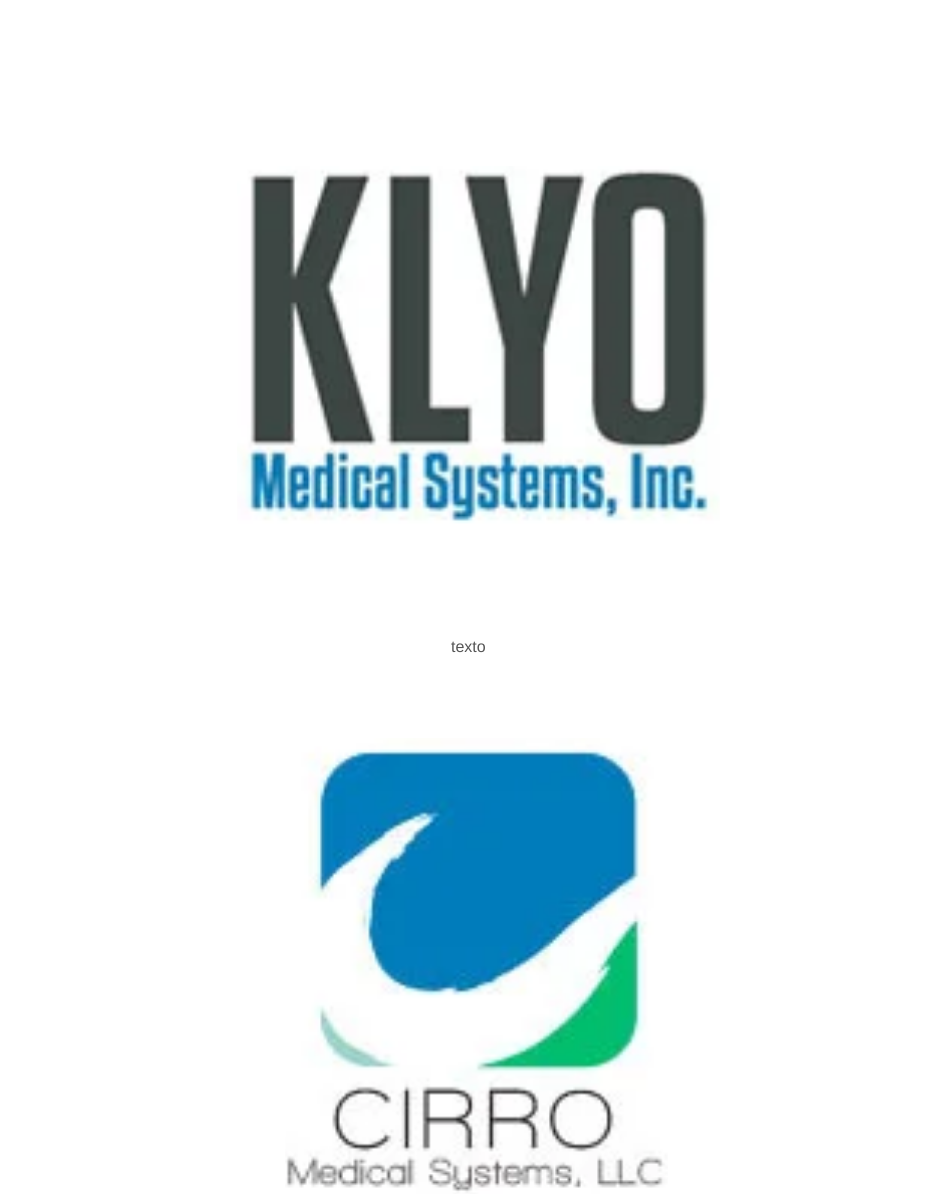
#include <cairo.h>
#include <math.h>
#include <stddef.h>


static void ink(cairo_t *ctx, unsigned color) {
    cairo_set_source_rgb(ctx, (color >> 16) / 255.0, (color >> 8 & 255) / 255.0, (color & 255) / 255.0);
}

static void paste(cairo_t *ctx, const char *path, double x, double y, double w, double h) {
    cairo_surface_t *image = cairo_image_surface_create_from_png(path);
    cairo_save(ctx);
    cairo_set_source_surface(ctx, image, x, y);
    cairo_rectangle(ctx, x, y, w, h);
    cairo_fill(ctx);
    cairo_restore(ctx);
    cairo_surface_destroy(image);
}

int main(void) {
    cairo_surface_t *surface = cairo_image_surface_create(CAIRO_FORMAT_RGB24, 938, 1194);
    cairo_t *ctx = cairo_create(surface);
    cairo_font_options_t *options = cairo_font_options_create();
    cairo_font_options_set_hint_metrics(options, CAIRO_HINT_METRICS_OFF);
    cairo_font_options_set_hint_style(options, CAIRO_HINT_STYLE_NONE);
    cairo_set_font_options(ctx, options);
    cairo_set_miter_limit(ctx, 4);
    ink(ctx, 0xFFFFFF);
    cairo_paint(ctx);
    paste(ctx, "media/1.png", 237, 166, 483, 358);
    cairo_select_font_face(ctx, "Liberation Sans", CAIRO_FONT_SLANT_NORMAL, CAIRO_FONT_WEIGHT_NORMAL);
    cairo_set_font_size(ctx, 16);
    ink(ctx, 0x555555);
    cairo_move_to(ctx, 451, 652);
    cairo_show_text(ctx, "texto");
    paste(ctx, "media/2.png", 285, 738, 383, 456);
    cairo_surface_write_to_png(surface, "image.png");
    cairo_font_options_destroy(options);
    cairo_destroy(ctx);
    cairo_surface_destroy(surface);
    return 0;
}
